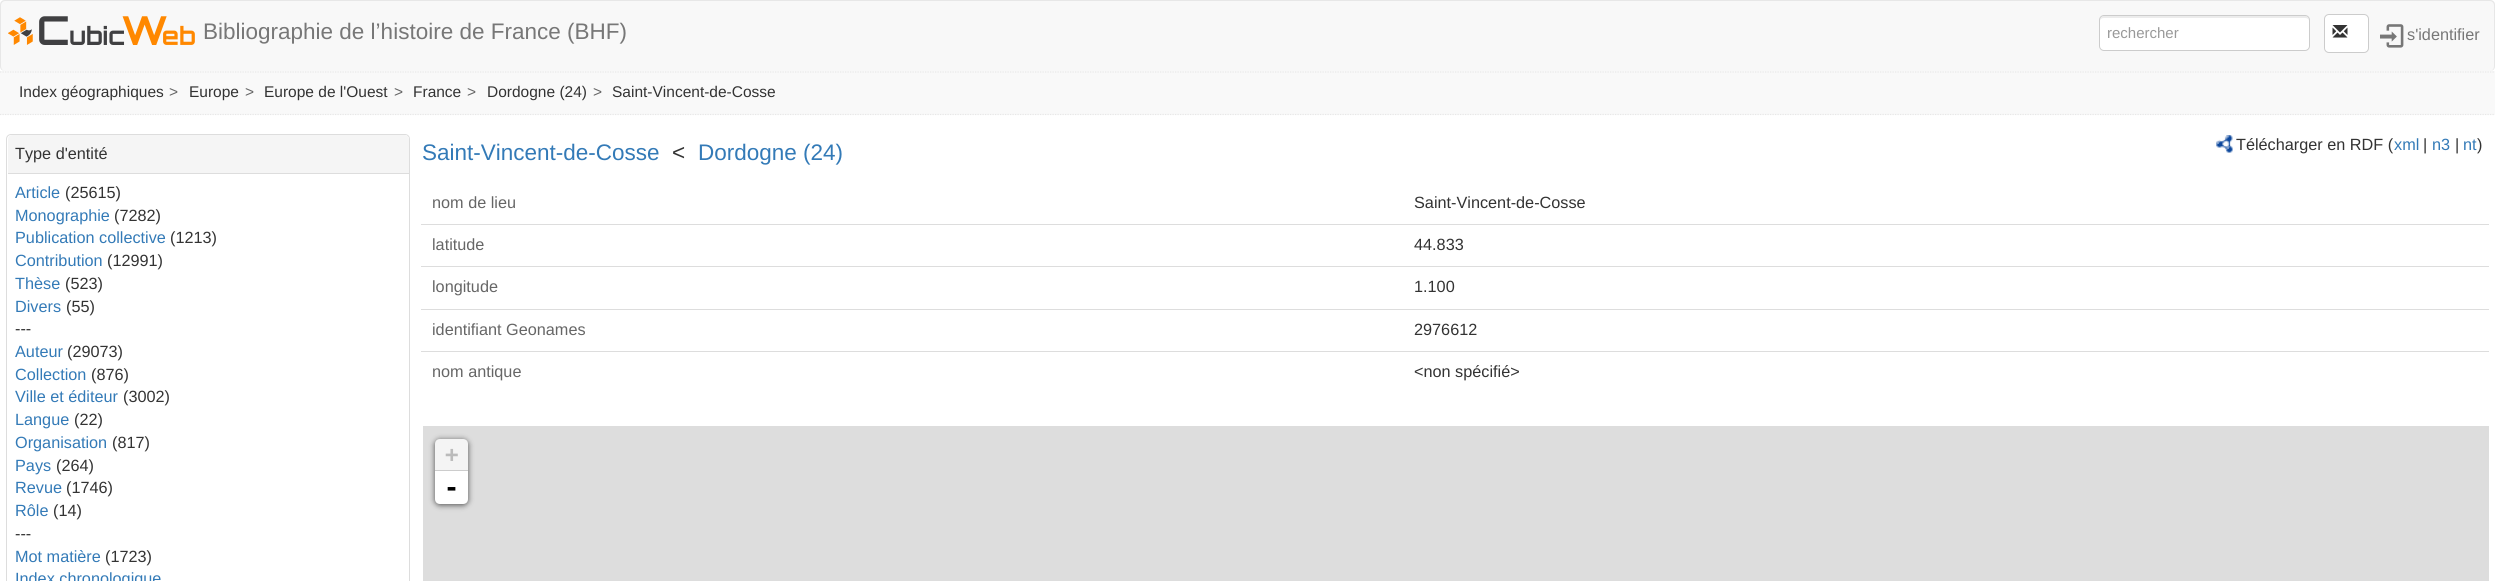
#include <cairo.h>
#include <math.h>
#include <stddef.h>


static void ink(cairo_t *ctx, unsigned color) {
    cairo_set_source_rgb(ctx, (color >> 16) / 255.0, (color >> 8 & 255) / 255.0, (color & 255) / 255.0);
}

static void round_path(cairo_t *ctx, double x, double y, double w, double h, double r) {
    cairo_new_sub_path(ctx);
    cairo_arc(ctx, x + w - r, y + h - r, r, 0, M_PI / 2);
    cairo_arc(ctx, x + r, y + h - r, r, M_PI / 2, M_PI);
    cairo_arc(ctx, x + r, y + r, r, M_PI, 1.5 * M_PI);
    cairo_arc(ctx, x + w - r, y + r, r, 1.5 * M_PI, 2 * M_PI);
    cairo_close_path(ctx);
}

static void blur_box(cairo_t *ctx, double x, double y, double w, double h, double r, double blur, double alpha) {
    cairo_push_group_with_content(ctx, CAIRO_CONTENT_ALPHA);
    cairo_set_operator(ctx, CAIRO_OPERATOR_SOURCE);
    for (int i = 15; i >= -15 && fmin(w, h) + blur * i / 3 > 0; i -= 2) {
        double e = blur * i / 6;
        cairo_set_source_rgba(ctx, 0, 0, 0, alpha * erfc((i - 1) / 8.5) / 2);
        round_path(ctx, x - e, y - e, w + 2 * e, h + 2 * e, fmax(0, fmin(r + e + blur * .6, fmin(w, h) / 2 + e)));
        cairo_fill(ctx);
    }
    cairo_pattern_t *soft = cairo_pop_group(ctx);
    cairo_mask(ctx, soft);
    cairo_pattern_destroy(soft);
}

static void paste(cairo_t *ctx, const char *path, double x, double y, double w, double h) {
    cairo_surface_t *image = cairo_image_surface_create_from_png(path);
    cairo_save(ctx);
    cairo_set_source_surface(ctx, image, x, y);
    cairo_rectangle(ctx, x, y, w, h);
    cairo_fill(ctx);
    cairo_restore(ctx);
    cairo_surface_destroy(image);
}

int main(void) {
    cairo_surface_t *surface = cairo_image_surface_create(CAIRO_FORMAT_RGB24, 2495, 581);
    cairo_t *ctx = cairo_create(surface);
    cairo_font_options_t *options = cairo_font_options_create();
    cairo_font_options_set_hint_metrics(options, CAIRO_HINT_METRICS_OFF);
    cairo_font_options_set_hint_style(options, CAIRO_HINT_STYLE_NONE);
    cairo_set_font_options(ctx, options);
    cairo_set_miter_limit(ctx, 4);
    ink(ctx, 0xFFFFFF);
    cairo_paint(ctx);
    ink(ctx, 0xF8F8F8);
    round_path(ctx, 0, 0, 2495, 71, 5);
    cairo_fill(ctx);
    ink(ctx, 0xE7E7E7);
    cairo_set_fill_rule(ctx, CAIRO_FILL_RULE_EVEN_ODD);
    cairo_new_path(ctx);
    cairo_move_to(ctx, 5, 0);
    cairo_line_to(ctx, 2490, 0);
    cairo_curve_to(ctx, 2493, 0, 2495, 2, 2495, 5);
    cairo_line_to(ctx, 2495, 66);
    cairo_curve_to(ctx, 2495, 69, 2493, 71, 2490, 71);
    cairo_line_to(ctx, 5, 71);
    cairo_curve_to(ctx, 2, 71, 0, 69, 0, 66);
    cairo_line_to(ctx, 0, 5);
    cairo_curve_to(ctx, 0, 2, 2, 0, 5, 0);
    cairo_close_path(ctx);
    cairo_move_to(ctx, 5, 1);
    cairo_line_to(ctx, 2490, 1);
    cairo_curve_to(ctx, 2492, 1, 2494, 3, 2494, 5);
    cairo_line_to(ctx, 2494, 66);
    cairo_curve_to(ctx, 2494, 69, 2492, 71, 2490, 71);
    cairo_line_to(ctx, 5, 71);
    cairo_curve_to(ctx, 3, 71, 1, 69, 1, 66);
    cairo_line_to(ctx, 1, 5);
    cairo_curve_to(ctx, 1, 3, 3, 1, 5, 1);
    cairo_close_path(ctx);
    cairo_fill(ctx);
    paste(ctx, "media/1.png", 8, 16, 187, 29);
    cairo_select_font_face(ctx, "Liberation Sans", CAIRO_FONT_SLANT_NORMAL, CAIRO_FONT_WEIGHT_NORMAL);
    cairo_set_font_size(ctx, 22.5);
    ink(ctx, 0x777777);
    cairo_move_to(ctx, 203, 39);
    cairo_show_text(ctx, "Bibliographie de l’histoire de France (BHF)");
    ink(ctx, 0xFFFFFF);
    round_path(ctx, 2099, 15, 211, 36, 5);
    cairo_fill(ctx);
    ink(ctx, 0xECECEC);
    cairo_set_fill_rule(ctx, CAIRO_FILL_RULE_WINDING);
    cairo_new_path(ctx);
    cairo_move_to(ctx, 2104, 18);
    cairo_line_to(ctx, 2305, 18);
    cairo_curve_to(ctx, 2307, 18, 2309, 19, 2309, 21);
    cairo_line_to(ctx, 2309, 20);
    cairo_curve_to(ctx, 2309, 18, 2307, 16, 2305, 16);
    cairo_line_to(ctx, 2104, 16);
    cairo_curve_to(ctx, 2102, 16, 2100, 18, 2100, 20);
    cairo_line_to(ctx, 2100, 21);
    cairo_curve_to(ctx, 2100, 19, 2102, 18, 2104, 18);
    cairo_close_path(ctx);
    cairo_fill(ctx);
    round_path(ctx, 2099.5, 15.5, 210, 35, 4.5);
    ink(ctx, 0xCCCCCC);
    cairo_set_line_width(ctx, 1);
    cairo_stroke(ctx);
    cairo_set_font_size(ctx, 15);
    ink(ctx, 0x999999);
    cairo_move_to(ctx, 2107, 38);
    cairo_show_text(ctx, "rechercher");
    ink(ctx, 0xFFFFFF);
    round_path(ctx, 2324.5, 14.5, 44, 38, 4.5);
    cairo_fill_preserve(ctx);
    ink(ctx, 0xCCCCCC);
    cairo_stroke(ctx);
    paste(ctx, "media/2.png", 2332, 25, 16, 13);
    paste(ctx, "media/3.png", 2380, 24, 24, 24);
    cairo_set_font_size(ctx, 16.25);
    ink(ctx, 0x777777);
    cairo_move_to(ctx, 2407, 40);
    cairo_show_text(ctx, "s'identifier");
    ink(ctx, 0xF9F9F9);
    cairo_rectangle(ctx, 0, 71, 2495, 44);
    cairo_fill(ctx);
    cairo_new_path(ctx);
    cairo_move_to(ctx, 0, 72);
    cairo_line_to(ctx, 2495, 72);
    ink(ctx, 0xE7E7E7);
    cairo_set_line_width(ctx, 1.2);
    cairo_set_dash(ctx, (double[]){1.25, 1.25}, 2, 0);
    cairo_stroke(ctx);
    cairo_new_path(ctx);
    cairo_move_to(ctx, 0, 114.5);
    cairo_line_to(ctx, 2495, 114.5);
    cairo_stroke(ctx);
    cairo_set_font_size(ctx, 15.5);
    ink(ctx, 0x333333);
    cairo_move_to(ctx, 19, 97);
    cairo_show_text(ctx, "Index géographiques");
    ink(ctx, 0x666666);
    cairo_move_to(ctx, 169, 97);
    cairo_show_text(ctx, ">");
    ink(ctx, 0x333333);
    cairo_move_to(ctx, 189, 97);
    cairo_show_text(ctx, "Europe");
    ink(ctx, 0x666666);
    cairo_move_to(ctx, 245, 97);
    cairo_show_text(ctx, ">");
    ink(ctx, 0x333333);
    cairo_move_to(ctx, 264, 97);
    cairo_show_text(ctx, "Europe de l'Ouest");
    ink(ctx, 0x666666);
    cairo_move_to(ctx, 394, 97);
    cairo_show_text(ctx, ">");
    ink(ctx, 0x333333);
    cairo_move_to(ctx, 413, 97);
    cairo_show_text(ctx, "France");
    ink(ctx, 0x666666);
    cairo_move_to(ctx, 467, 97);
    cairo_show_text(ctx, ">");
    ink(ctx, 0x333333);
    cairo_move_to(ctx, 487, 97);
    cairo_show_text(ctx, "Dordogne (24)");
    ink(ctx, 0x666666);
    cairo_move_to(ctx, 593, 97);
    cairo_show_text(ctx, ">");
    ink(ctx, 0x333333);
    cairo_move_to(ctx, 612, 97);
    cairo_show_text(ctx, "Saint-Vincent-de-Cosse");
    round_path(ctx, 6.5, 134.5, 403, 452, 4.5);
    ink(ctx, 0xDDDDDD);
    cairo_set_line_width(ctx, 1);
    cairo_set_dash(ctx, NULL, 0, 0);
    cairo_stroke(ctx);
    ink(ctx, 0xF5F5F5);
    cairo_new_path(ctx);
    cairo_move_to(ctx, 12, 135);
    cairo_line_to(ctx, 405, 135);
    cairo_curve_to(ctx, 407, 135, 409, 137, 409, 139);
    cairo_line_to(ctx, 409, 174);
    cairo_line_to(ctx, 8, 174);
    cairo_line_to(ctx, 8, 139);
    cairo_curve_to(ctx, 8, 137, 10, 135, 12, 135);
    cairo_close_path(ctx);
    cairo_fill(ctx);
    ink(ctx, 0xDDDDDD);
    cairo_rectangle(ctx, 8, 173, 401, 1);
    cairo_fill(ctx);
    cairo_set_font_size(ctx, 16.25);
    ink(ctx, 0x333333);
    cairo_move_to(ctx, 15, 159);
    cairo_show_text(ctx, "Type d'entité");
    ink(ctx, 0x337AB7);
    cairo_move_to(ctx, 15, 198);
    cairo_show_text(ctx, "Article");
    ink(ctx, 0x333333);
    cairo_move_to(ctx, 65, 198);
    cairo_show_text(ctx, "(25615)");
    ink(ctx, 0x337AB7);
    cairo_move_to(ctx, 15, 221);
    cairo_show_text(ctx, "Monographie");
    ink(ctx, 0x333333);
    cairo_move_to(ctx, 114, 221);
    cairo_show_text(ctx, "(7282)");
    ink(ctx, 0x337AB7);
    cairo_move_to(ctx, 15, 243);
    cairo_show_text(ctx, "Publication collective");
    ink(ctx, 0x333333);
    cairo_move_to(ctx, 170, 243);
    cairo_show_text(ctx, "(1213)");
    ink(ctx, 0x337AB7);
    cairo_move_to(ctx, 15, 266);
    cairo_show_text(ctx, "Contribution");
    ink(ctx, 0x333333);
    cairo_move_to(ctx, 107, 266);
    cairo_show_text(ctx, "(12991)");
    ink(ctx, 0x337AB7);
    cairo_move_to(ctx, 15, 289);
    cairo_show_text(ctx, "Thèse");
    ink(ctx, 0x333333);
    cairo_move_to(ctx, 65, 289);
    cairo_show_text(ctx, "(523)");
    ink(ctx, 0x337AB7);
    cairo_move_to(ctx, 15, 312);
    cairo_show_text(ctx, "Divers");
    ink(ctx, 0x333333);
    cairo_move_to(ctx, 66, 312);
    cairo_show_text(ctx, "(55)");
    cairo_move_to(ctx, 15, 334);
    cairo_show_text(ctx, "---");
    ink(ctx, 0x337AB7);
    cairo_move_to(ctx, 15, 357);
    cairo_show_text(ctx, "Auteur");
    ink(ctx, 0x333333);
    cairo_move_to(ctx, 67, 357);
    cairo_show_text(ctx, "(29073)");
    ink(ctx, 0x337AB7);
    cairo_move_to(ctx, 15, 380);
    cairo_show_text(ctx, "Collection");
    ink(ctx, 0x333333);
    cairo_move_to(ctx, 91, 380);
    cairo_show_text(ctx, "(876)");
    ink(ctx, 0x337AB7);
    cairo_move_to(ctx, 15, 402);
    cairo_show_text(ctx, "Ville et éditeur");
    ink(ctx, 0x333333);
    cairo_move_to(ctx, 123, 402);
    cairo_show_text(ctx, "(3002)");
    ink(ctx, 0x337AB7);
    cairo_move_to(ctx, 15, 425);
    cairo_show_text(ctx, "Langue");
    ink(ctx, 0x333333);
    cairo_move_to(ctx, 74, 425);
    cairo_show_text(ctx, "(22)");
    ink(ctx, 0x337AB7);
    cairo_move_to(ctx, 15, 448);
    cairo_show_text(ctx, "Organisation");
    ink(ctx, 0x333333);
    cairo_move_to(ctx, 112, 448);
    cairo_show_text(ctx, "(817)");
    ink(ctx, 0x337AB7);
    cairo_move_to(ctx, 15, 471);
    cairo_show_text(ctx, "Pays");
    ink(ctx, 0x333333);
    cairo_move_to(ctx, 56, 471);
    cairo_show_text(ctx, "(264)");
    ink(ctx, 0x337AB7);
    cairo_move_to(ctx, 15, 493);
    cairo_show_text(ctx, "Revue");
    ink(ctx, 0x333333);
    cairo_move_to(ctx, 66, 493);
    cairo_show_text(ctx, "(1746)");
    ink(ctx, 0x337AB7);
    cairo_move_to(ctx, 15, 516);
    cairo_show_text(ctx, "Rôle");
    ink(ctx, 0x333333);
    cairo_move_to(ctx, 53, 516);
    cairo_show_text(ctx, "(14)");
    cairo_move_to(ctx, 15, 539);
    cairo_show_text(ctx, "---");
    ink(ctx, 0x337AB7);
    cairo_move_to(ctx, 15, 562);
    cairo_show_text(ctx, "Mot matière");
    ink(ctx, 0x333333);
    cairo_move_to(ctx, 105, 562);
    cairo_show_text(ctx, "(1723)");
    ink(ctx, 0x337AB7);
    cairo_move_to(ctx, 15, 584);
    cairo_show_text(ctx, "Index chronologique");
    cairo_set_font_size(ctx, 22.5);
    cairo_move_to(ctx, 422, 160);
    cairo_show_text(ctx, "Saint-Vincent-de-Cosse");
    ink(ctx, 0x333333);
    cairo_move_to(ctx, 672, 160);
    cairo_show_text(ctx, "<");
    ink(ctx, 0x337AB7);
    cairo_move_to(ctx, 698, 160);
    cairo_show_text(ctx, "Dordogne (24)");
    paste(ctx, "media/4.png", 2216, 135, 17, 18);
    cairo_set_font_size(ctx, 16.25);
    ink(ctx, 0x333333);
    cairo_move_to(ctx, 2236, 150);
    cairo_show_text(ctx, "Télécharger en RDF (");
    ink(ctx, 0x337AB7);
    cairo_move_to(ctx, 2394, 150);
    cairo_show_text(ctx, "xml");
    ink(ctx, 0x333333);
    cairo_move_to(ctx, 2423, 150);
    cairo_show_text(ctx, "|");
    ink(ctx, 0x337AB7);
    cairo_move_to(ctx, 2432, 150);
    cairo_show_text(ctx, "n3");
    ink(ctx, 0x333333);
    cairo_move_to(ctx, 2455, 150);
    cairo_show_text(ctx, "|");
    ink(ctx, 0x337AB7);
    cairo_move_to(ctx, 2463, 150);
    cairo_show_text(ctx, "nt");
    ink(ctx, 0x333333);
    cairo_move_to(ctx, 2477, 150);
    cairo_show_text(ctx, ")");
    ink(ctx, 0x666666);
    cairo_move_to(ctx, 432, 208);
    cairo_show_text(ctx, "nom de lieu");
    ink(ctx, 0x333333);
    cairo_move_to(ctx, 1414, 208);
    cairo_show_text(ctx, "Saint-Vincent-de-Cosse");
    ink(ctx, 0x666666);
    cairo_move_to(ctx, 432, 250);
    cairo_show_text(ctx, "latitude");
    ink(ctx, 0xDDDDDD);
    cairo_rectangle(ctx, 421, 224, 2068, 1);
    cairo_fill(ctx);
    ink(ctx, 0x333333);
    cairo_move_to(ctx, 1414, 250);
    cairo_show_text(ctx, "44.833");
    ink(ctx, 0x666666);
    cairo_move_to(ctx, 432, 292);
    cairo_show_text(ctx, "longitude");
    ink(ctx, 0xDDDDDD);
    cairo_rectangle(ctx, 421, 266, 2068, 1);
    cairo_fill(ctx);
    ink(ctx, 0x333333);
    cairo_move_to(ctx, 1414, 292);
    cairo_show_text(ctx, "1.100");
    ink(ctx, 0x666666);
    cairo_move_to(ctx, 432, 335);
    cairo_show_text(ctx, "identifiant Geonames");
    ink(ctx, 0xDDDDDD);
    cairo_rectangle(ctx, 421, 309, 2068, 1);
    cairo_fill(ctx);
    ink(ctx, 0x333333);
    cairo_move_to(ctx, 1414, 335);
    cairo_show_text(ctx, "2976612");
    ink(ctx, 0x666666);
    cairo_move_to(ctx, 432, 377);
    cairo_show_text(ctx, "nom antique");
    ink(ctx, 0xDDDDDD);
    cairo_rectangle(ctx, 421, 351, 2068, 1);
    cairo_fill(ctx);
    ink(ctx, 0x333333);
    cairo_move_to(ctx, 1414, 377);
    cairo_show_text(ctx, "<non spécifié>");
    ink(ctx, 0xDDDDDD);
    cairo_rectangle(ctx, 423, 426, 2066, 155);
    cairo_fill(ctx);
    ink(ctx, 0x000000);
    blur_box(ctx, 435, 440, 33, 65, 5, 3, 0.65);
    ink(ctx, 0xF4F4F4);
    cairo_new_path(ctx);
    cairo_move_to(ctx, 440, 439);
    cairo_line_to(ctx, 463, 439);
    cairo_curve_to(ctx, 466, 439, 468, 441, 468, 444);
    cairo_line_to(ctx, 468, 471);
    cairo_line_to(ctx, 435, 471);
    cairo_line_to(ctx, 435, 444);
    cairo_curve_to(ctx, 435, 441, 437, 439, 440, 439);
    cairo_close_path(ctx);
    cairo_fill(ctx);
    ink(ctx, 0xCCCCCC);
    cairo_rectangle(ctx, 435, 470, 33, 1);
    cairo_fill(ctx);
    cairo_select_font_face(ctx, "DejaVu Sans Mono", CAIRO_FONT_SLANT_NORMAL, CAIRO_FONT_WEIGHT_BOLD);
    cairo_set_font_size(ctx, 22.5);
    ink(ctx, 0xBBBBBB);
    cairo_move_to(ctx, 445, 462);
    cairo_show_text(ctx, "+");
    ink(ctx, 0xFFFFFF);
    cairo_new_path(ctx);
    cairo_move_to(ctx, 435, 471);
    cairo_line_to(ctx, 468, 471);
    cairo_line_to(ctx, 468, 499);
    cairo_curve_to(ctx, 468, 502, 466, 504, 463, 504);
    cairo_line_to(ctx, 440, 504);
    cairo_curve_to(ctx, 437, 504, 435, 502, 435, 499);
    cairo_close_path(ctx);
    cairo_fill(ctx);
    cairo_set_font_size(ctx, 25);
    ink(ctx, 0x000000);
    cairo_move_to(ctx, 444, 496);
    cairo_show_text(ctx, "-");
    cairo_surface_write_to_png(surface, "image.png");
    cairo_font_options_destroy(options);
    cairo_destroy(ctx);
    cairo_surface_destroy(surface);
    return 0;
}
